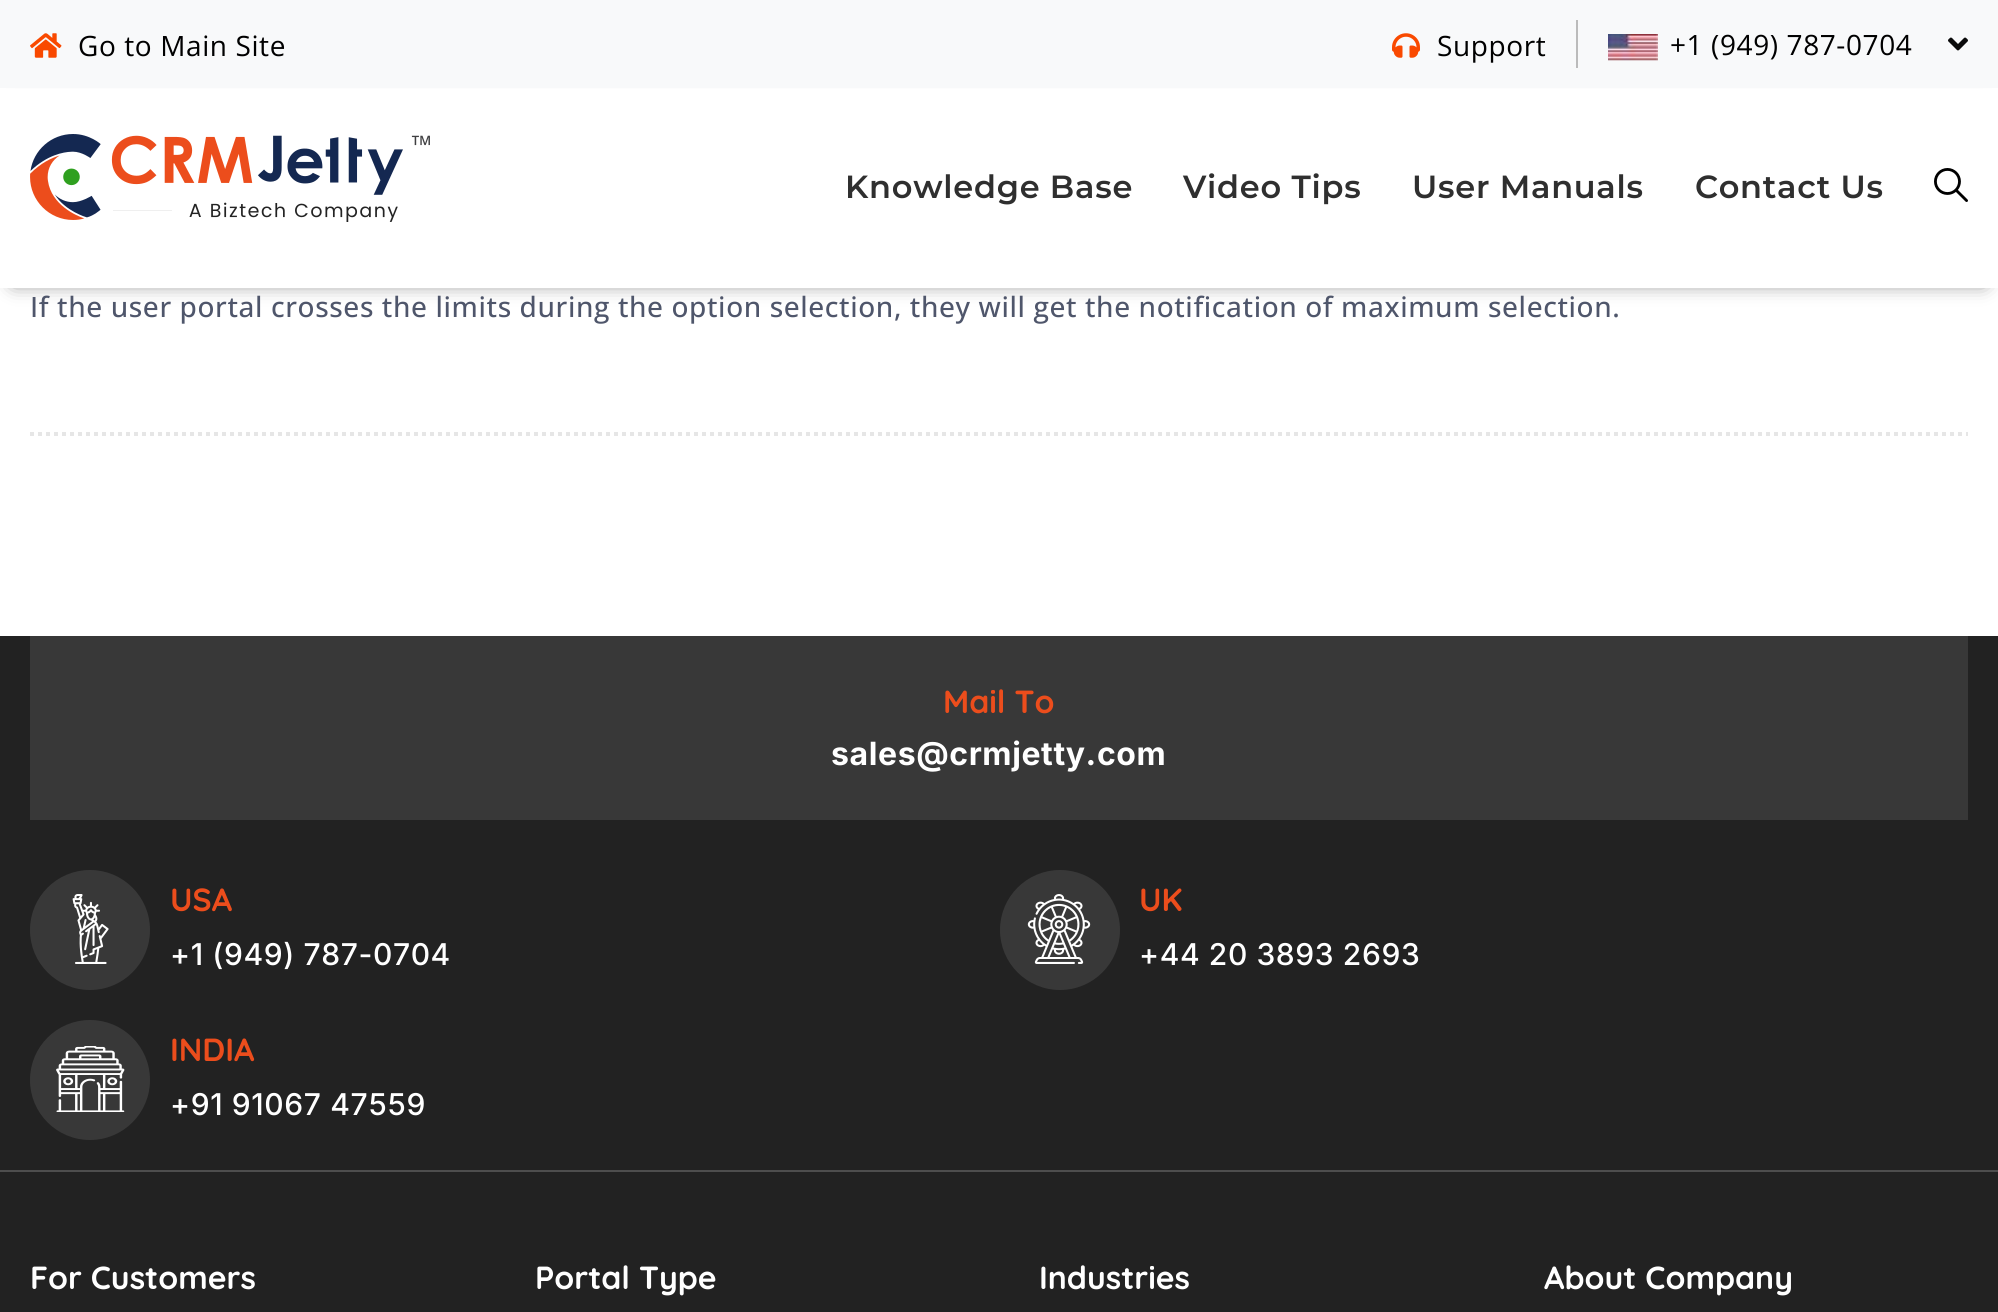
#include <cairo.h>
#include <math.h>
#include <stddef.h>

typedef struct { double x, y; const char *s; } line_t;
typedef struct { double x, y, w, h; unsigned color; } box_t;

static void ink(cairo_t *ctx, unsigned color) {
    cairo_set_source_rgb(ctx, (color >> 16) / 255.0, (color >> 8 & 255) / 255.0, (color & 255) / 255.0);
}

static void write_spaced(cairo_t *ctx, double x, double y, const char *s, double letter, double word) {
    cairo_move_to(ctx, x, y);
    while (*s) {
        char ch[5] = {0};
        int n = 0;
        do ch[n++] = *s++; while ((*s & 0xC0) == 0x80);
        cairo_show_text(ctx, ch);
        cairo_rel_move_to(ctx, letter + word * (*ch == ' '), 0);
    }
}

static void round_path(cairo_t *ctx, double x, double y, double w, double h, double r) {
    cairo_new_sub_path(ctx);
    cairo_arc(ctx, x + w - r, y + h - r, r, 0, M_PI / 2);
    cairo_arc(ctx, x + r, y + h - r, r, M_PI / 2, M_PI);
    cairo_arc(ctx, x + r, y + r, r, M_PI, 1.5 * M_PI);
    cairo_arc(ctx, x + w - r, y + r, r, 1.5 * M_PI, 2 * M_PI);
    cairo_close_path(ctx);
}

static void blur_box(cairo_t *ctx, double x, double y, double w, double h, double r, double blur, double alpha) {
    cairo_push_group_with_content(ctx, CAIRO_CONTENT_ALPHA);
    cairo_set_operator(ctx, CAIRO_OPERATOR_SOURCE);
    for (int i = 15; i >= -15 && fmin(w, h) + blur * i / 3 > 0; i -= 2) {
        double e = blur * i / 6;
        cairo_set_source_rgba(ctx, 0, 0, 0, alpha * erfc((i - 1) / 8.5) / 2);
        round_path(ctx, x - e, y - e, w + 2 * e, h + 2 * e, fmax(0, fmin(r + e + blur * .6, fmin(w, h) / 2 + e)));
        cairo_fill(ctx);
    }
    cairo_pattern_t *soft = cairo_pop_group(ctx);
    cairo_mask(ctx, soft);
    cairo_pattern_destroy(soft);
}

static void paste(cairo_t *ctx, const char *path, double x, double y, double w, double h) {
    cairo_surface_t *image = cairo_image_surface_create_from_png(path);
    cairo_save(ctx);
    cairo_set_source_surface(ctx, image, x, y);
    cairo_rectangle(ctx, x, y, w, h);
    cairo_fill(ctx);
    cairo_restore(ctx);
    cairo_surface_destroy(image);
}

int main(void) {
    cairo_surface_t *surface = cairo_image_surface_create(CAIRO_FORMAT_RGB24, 1998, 1312);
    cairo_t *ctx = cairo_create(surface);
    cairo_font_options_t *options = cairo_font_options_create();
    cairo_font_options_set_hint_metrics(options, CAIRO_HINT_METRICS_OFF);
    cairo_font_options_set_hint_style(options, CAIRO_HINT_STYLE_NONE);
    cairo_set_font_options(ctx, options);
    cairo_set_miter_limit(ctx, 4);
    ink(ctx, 0xFFFFFF);
    cairo_paint(ctx);
    ink(ctx, 0x000000);
    blur_box(ctx, 14, 110, 1970, 172, 0, 10, 0.6);
    ink(ctx, 0xF8F9FA);
    cairo_rectangle(ctx, 0, 0, 1998, 88);
    cairo_fill(ctx);
    paste(ctx, "media/1.png", 30, 33, 32, 25);
    cairo_select_font_face(ctx, "Open Sans", CAIRO_FONT_SLANT_NORMAL, CAIRO_FONT_WEIGHT_NORMAL);
    cairo_set_font_size(ctx, 28);
    ink(ctx, 0x000000);
    write_spaced(ctx, 78, 56, "Go to Main Site", 0.6, 0);
    ink(ctx, 0xBBBBBB);
    cairo_rectangle(ctx, 1576, 20, 2, 48);
    cairo_fill(ctx);
    paste(ctx, "media/2.png", 1392, 33, 28, 25);
    ink(ctx, 0x000000);
    write_spaced(ctx, 1437, 56, "Support", 0.6, 0);
    paste(ctx, "media/3.png", 1608, 34, 50, 27);
    write_spaced(ctx, 1670, 55, "+1 (949) 787-0704", 0.6, 0);
    paste(ctx, "media/4.png", 1948, 37, 20, 14);
    ink(ctx, 0xFFFFFF);
    cairo_rectangle(ctx, 0, 89, 1998, 199);
    cairo_fill(ctx);
    paste(ctx, "media/5.png", 30, 134, 400, 88);
    cairo_select_font_face(ctx, "Montserrat SemiBold", CAIRO_FONT_SLANT_NORMAL, CAIRO_FONT_WEIGHT_NORMAL);
    cairo_set_font_size(ctx, 32);
    ink(ctx, 0x2F2F2F);
    {
        static const line_t items[] = {
            {845, 198, "Knowledge Base"},
            {1183, 198, "Video Tips"},
            {1412, 198, "User Manuals"},
            {1695, 198, "Contact Us"},
        };
        for (size_t i = 0; i < sizeof items / sizeof *items; i++) {
            write_spaced(ctx, items[i].x, items[i].y, items[i].s, 0.75, 0);
        }
    }
    paste(ctx, "media/6.png", 1934, 168, 34, 34);
    cairo_new_path(ctx);
    cairo_move_to(ctx, 30, 434);
    cairo_line_to(ctx, 1968, 434);
    ink(ctx, 0xE6E6E6);
    cairo_set_line_width(ctx, 4);
    cairo_set_dash(ctx, (double[]){4, 4}, 2, 0);
    cairo_stroke(ctx);
    cairo_select_font_face(ctx, "Open Sans Medium", CAIRO_FONT_SLANT_NORMAL, CAIRO_FONT_WEIGHT_NORMAL);
    cairo_set_font_size(ctx, 28);
    ink(ctx, 0x4F566B);
    write_spaced(ctx, 30, 317, "If the user portal crosses the limits during the option selection, they will get the notification of maximum selection.", 0.6, 0);
    {
        static const box_t items[] = {
            {0, 636, 1998, 676, 0x222222},
            {0, 1170, 1998, 2, 0x4E4E4E},
            {30, 636, 1938, 184, 0x383838},
        };
        for (size_t i = 0; i < sizeof items / sizeof *items; i++) {
            ink(ctx, items[i].color);
            cairo_rectangle(ctx, items[i].x, items[i].y, items[i].w, items[i].h);
            cairo_fill(ctx);
        }
    }
    cairo_select_font_face(ctx, "Quicksand", CAIRO_FONT_SLANT_NORMAL, CAIRO_FONT_WEIGHT_BOLD);
    cairo_set_font_size(ctx, 32);
    ink(ctx, 0xEC4D1C);
    cairo_move_to(ctx, 943, 713);
    cairo_show_text(ctx, "Mail To");
    cairo_select_font_face(ctx, "Inter", CAIRO_FONT_SLANT_NORMAL, CAIRO_FONT_WEIGHT_BOLD);
    ink(ctx, 0xFFFFFF);
    write_spaced(ctx, 831, 765, "sales@crmjetty.com", 0.6, 0);
    ink(ctx, 0x383838);
    cairo_new_path(ctx);
    cairo_arc(ctx, 90, 930, 60, 0, 2 * M_PI);
    cairo_fill(ctx);
    paste(ctx, "media/7.png", 72, 894, 37, 70);
    cairo_select_font_face(ctx, "Quicksand", CAIRO_FONT_SLANT_NORMAL, CAIRO_FONT_WEIGHT_BOLD);
    ink(ctx, 0xEC4D1C);
    cairo_move_to(ctx, 170, 911);
    cairo_show_text(ctx, "USA");
    cairo_select_font_face(ctx, "Inter Medium", CAIRO_FONT_SLANT_NORMAL, CAIRO_FONT_WEIGHT_NORMAL);
    cairo_set_font_size(ctx, 30);
    ink(ctx, 0xFFFFFF);
    write_spaced(ctx, 170, 965, "+1 (949) 787-0704", 0.6, 0);
    ink(ctx, 0x383838);
    cairo_new_path(ctx);
    cairo_arc(ctx, 1060, 930, 60, 0, 2 * M_PI);
    cairo_fill(ctx);
    paste(ctx, "media/8.png", 1027, 894, 64, 70);
    cairo_select_font_face(ctx, "Quicksand", CAIRO_FONT_SLANT_NORMAL, CAIRO_FONT_WEIGHT_BOLD);
    cairo_set_font_size(ctx, 32);
    ink(ctx, 0xEC4D1C);
    cairo_move_to(ctx, 1139, 911);
    cairo_show_text(ctx, "UK");
    cairo_select_font_face(ctx, "Inter Medium", CAIRO_FONT_SLANT_NORMAL, CAIRO_FONT_WEIGHT_NORMAL);
    cairo_set_font_size(ctx, 30);
    ink(ctx, 0xFFFFFF);
    write_spaced(ctx, 1139, 965, "+44 20 3893 2693", 0.6, 0);
    ink(ctx, 0x383838);
    cairo_new_path(ctx);
    cairo_arc(ctx, 90, 1080, 60, 0, 2 * M_PI);
    cairo_fill(ctx);
    paste(ctx, "media/9.png", 56, 1046, 69, 66);
    cairo_select_font_face(ctx, "Quicksand", CAIRO_FONT_SLANT_NORMAL, CAIRO_FONT_WEIGHT_BOLD);
    cairo_set_font_size(ctx, 32);
    ink(ctx, 0xEC4D1C);
    cairo_move_to(ctx, 170, 1061);
    cairo_show_text(ctx, "INDIA");
    cairo_select_font_face(ctx, "Inter Medium", CAIRO_FONT_SLANT_NORMAL, CAIRO_FONT_WEIGHT_NORMAL);
    cairo_set_font_size(ctx, 30);
    ink(ctx, 0xFFFFFF);
    write_spaced(ctx, 170, 1115, "+91 91067 47559", 0.6, 0);
    cairo_select_font_face(ctx, "Quicksand", CAIRO_FONT_SLANT_NORMAL, CAIRO_FONT_WEIGHT_BOLD);
    cairo_set_font_size(ctx, 32);
    {
        static const line_t items[] = {
            {30, 1289, "For Customers"},
            {535, 1289, "Portal Type"},
            {1039, 1289, "Industries"},
            {1544, 1289, "About Company"},
        };
        for (size_t i = 0; i < sizeof items / sizeof *items; i++) {
            cairo_move_to(ctx, items[i].x, items[i].y);
            cairo_show_text(ctx, items[i].s);
        }
    }
    cairo_surface_write_to_png(surface, "image.png");
    cairo_font_options_destroy(options);
    cairo_destroy(ctx);
    cairo_surface_destroy(surface);
    return 0;
}
